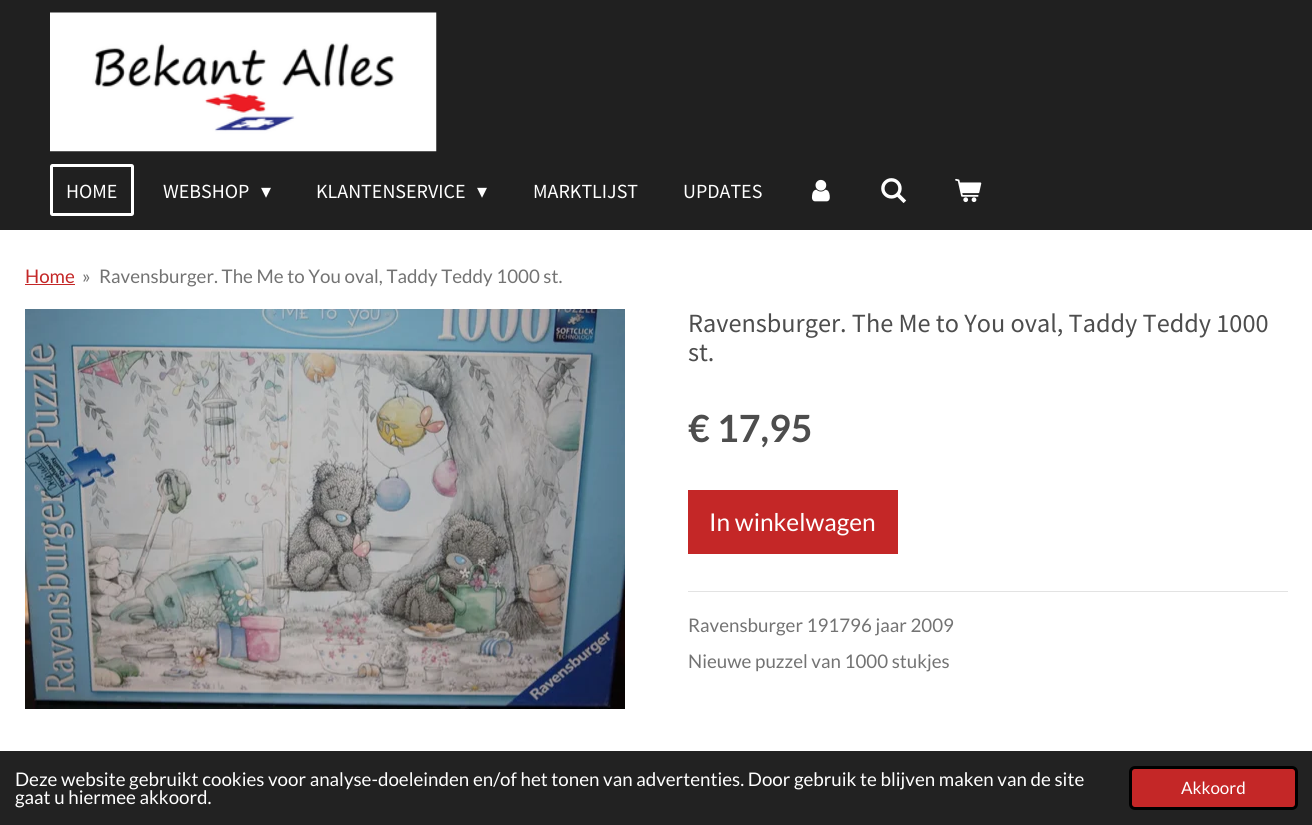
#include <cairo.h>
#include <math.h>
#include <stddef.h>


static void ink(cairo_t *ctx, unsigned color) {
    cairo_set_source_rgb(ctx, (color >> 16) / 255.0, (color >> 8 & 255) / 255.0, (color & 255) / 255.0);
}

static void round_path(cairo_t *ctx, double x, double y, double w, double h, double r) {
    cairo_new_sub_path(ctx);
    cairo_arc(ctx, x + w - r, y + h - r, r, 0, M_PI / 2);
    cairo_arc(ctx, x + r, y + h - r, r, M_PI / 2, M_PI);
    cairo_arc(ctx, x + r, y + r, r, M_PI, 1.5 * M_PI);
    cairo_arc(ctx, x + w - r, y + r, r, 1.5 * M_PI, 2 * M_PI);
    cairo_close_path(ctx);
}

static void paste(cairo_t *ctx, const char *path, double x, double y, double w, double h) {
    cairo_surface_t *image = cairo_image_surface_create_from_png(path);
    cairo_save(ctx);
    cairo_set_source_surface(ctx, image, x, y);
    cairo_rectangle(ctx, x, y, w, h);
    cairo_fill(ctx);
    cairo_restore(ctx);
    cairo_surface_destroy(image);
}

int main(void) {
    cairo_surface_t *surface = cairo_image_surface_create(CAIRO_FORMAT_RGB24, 1312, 825);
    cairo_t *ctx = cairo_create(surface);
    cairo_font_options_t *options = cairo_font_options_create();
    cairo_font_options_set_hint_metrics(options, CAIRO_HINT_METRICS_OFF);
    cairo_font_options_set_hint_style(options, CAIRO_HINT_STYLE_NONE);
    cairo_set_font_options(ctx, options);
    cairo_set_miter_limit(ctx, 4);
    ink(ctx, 0xFFFFFF);
    cairo_paint(ctx);
    ink(ctx, 0x202020);
    cairo_rectangle(ctx, 0, 0, 1312, 230);
    cairo_fill(ctx);
    paste(ctx, "media/1.png", 50, 12, 387, 140);
    round_path(ctx, 51.5, 165.5, 81, 49, 1);
    ink(ctx, 0xFFFFFF);
    cairo_set_line_width(ctx, 3);
    cairo_stroke(ctx);
    cairo_select_font_face(ctx, "Source Sans Pro", CAIRO_FONT_SLANT_NORMAL, CAIRO_FONT_WEIGHT_NORMAL);
    cairo_set_font_size(ctx, 20);
    cairo_move_to(ctx, 66, 198);
    cairo_show_text(ctx, "HOME");
    cairo_move_to(ctx, 163, 198);
    cairo_show_text(ctx, "WEBSHOP");
    cairo_select_font_face(ctx, "DejaVu Sans", CAIRO_FONT_SLANT_NORMAL, CAIRO_FONT_WEIGHT_NORMAL);
    cairo_move_to(ctx, 261, 198);
    cairo_show_text(ctx, "▾");
    cairo_select_font_face(ctx, "Source Sans Pro", CAIRO_FONT_SLANT_NORMAL, CAIRO_FONT_WEIGHT_NORMAL);
    cairo_move_to(ctx, 316, 198);
    cairo_show_text(ctx, "KLANTENSERVICE");
    cairo_select_font_face(ctx, "DejaVu Sans", CAIRO_FONT_SLANT_NORMAL, CAIRO_FONT_WEIGHT_NORMAL);
    cairo_move_to(ctx, 477, 198);
    cairo_show_text(ctx, "▾");
    cairo_select_font_face(ctx, "Source Sans Pro", CAIRO_FONT_SLANT_NORMAL, CAIRO_FONT_WEIGHT_NORMAL);
    cairo_move_to(ctx, 533, 198);
    cairo_show_text(ctx, "MARKTLIJST");
    cairo_move_to(ctx, 683, 198);
    cairo_show_text(ctx, "UPDATES");
    paste(ctx, "media/2.png", 811, 179, 19, 23);
    paste(ctx, "media/3.png", 881, 178, 26, 25);
    paste(ctx, "media/4.png", 955, 178, 27, 25);
    cairo_select_font_face(ctx, "Lato", CAIRO_FONT_SLANT_NORMAL, CAIRO_FONT_WEIGHT_NORMAL);
    cairo_set_font_size(ctx, 18.75);
    ink(ctx, 0xC42727);
    cairo_move_to(ctx, 25, 283);
    cairo_show_text(ctx, "Home");
    cairo_rectangle(ctx, 25, 284, 50, 1);
    cairo_fill(ctx);
    ink(ctx, 0x737373);
    cairo_move_to(ctx, 82, 283);
    cairo_show_text(ctx, "»");
    cairo_move_to(ctx, 99, 283);
    cairo_show_text(ctx, "Ravensburger. The Me to You oval, Taddy Teddy 1000 st.");
    paste(ctx, "media/5.png", 25, 309, 600, 400);
    cairo_select_font_face(ctx, "Source Sans Pro", CAIRO_FONT_SLANT_NORMAL, CAIRO_FONT_WEIGHT_NORMAL);
    cairo_set_font_size(ctx, 26.25);
    ink(ctx, 0x4D4D4D);
    cairo_move_to(ctx, 688, 332);
    cairo_show_text(ctx, "Ravensburger. The Me to You oval, Taddy Teddy 1000");
    cairo_move_to(ctx, 688, 361);
    cairo_show_text(ctx, "st.");
    cairo_select_font_face(ctx, "Lato", CAIRO_FONT_SLANT_NORMAL, CAIRO_FONT_WEIGHT_BOLD);
    cairo_set_font_size(ctx, 37.5);
    cairo_move_to(ctx, 688, 442);
    cairo_show_text(ctx, "€ 17,95");
    ink(ctx, 0xC42727);
    cairo_rectangle(ctx, 688, 490, 210, 64);
    cairo_fill(ctx);
    cairo_select_font_face(ctx, "Lato", CAIRO_FONT_SLANT_NORMAL, CAIRO_FONT_WEIGHT_NORMAL);
    cairo_set_font_size(ctx, 24.5);
    ink(ctx, 0xFFFFFF);
    cairo_move_to(ctx, 709, 531);
    cairo_show_text(ctx, "In winkelwagen");
    ink(ctx, 0xE3E3E3);
    cairo_rectangle(ctx, 688, 591, 600, 1);
    cairo_fill(ctx);
    cairo_set_font_size(ctx, 18.75);
    ink(ctx, 0x737373);
    cairo_move_to(ctx, 688, 632);
    cairo_show_text(ctx, "Ravensburger 191796 jaar 2009");
    cairo_move_to(ctx, 688, 668);
    cairo_show_text(ctx, "Nieuwe puzzel van 1000 stukjes");
    ink(ctx, 0x222222);
    cairo_rectangle(ctx, 0, 751, 1312, 74);
    cairo_fill(ctx);
    ink(ctx, 0xFFFFFF);
    cairo_move_to(ctx, 15, 786);
    cairo_show_text(ctx, "Deze website gebruikt cookies voor analyse-doeleinden en/of het tonen van advertenties. Door gebruik te blijven maken van de site");
    cairo_move_to(ctx, 15, 804);
    cairo_show_text(ctx, "gaat u hiermee akkoord.");
    ink(ctx, 0xC42727);
    round_path(ctx, 1130.5, 767.5, 166, 41, 4.5);
    cairo_fill_preserve(ctx);
    ink(ctx, 0x000000);
    cairo_stroke(ctx);
    cairo_set_font_size(ctx, 17);
    ink(ctx, 0xFFFFFF);
    cairo_move_to(ctx, 1181, 794);
    cairo_show_text(ctx, "Akkoord");
    cairo_surface_write_to_png(surface, "image.png");
    cairo_font_options_destroy(options);
    cairo_destroy(ctx);
    cairo_surface_destroy(surface);
    return 0;
}
